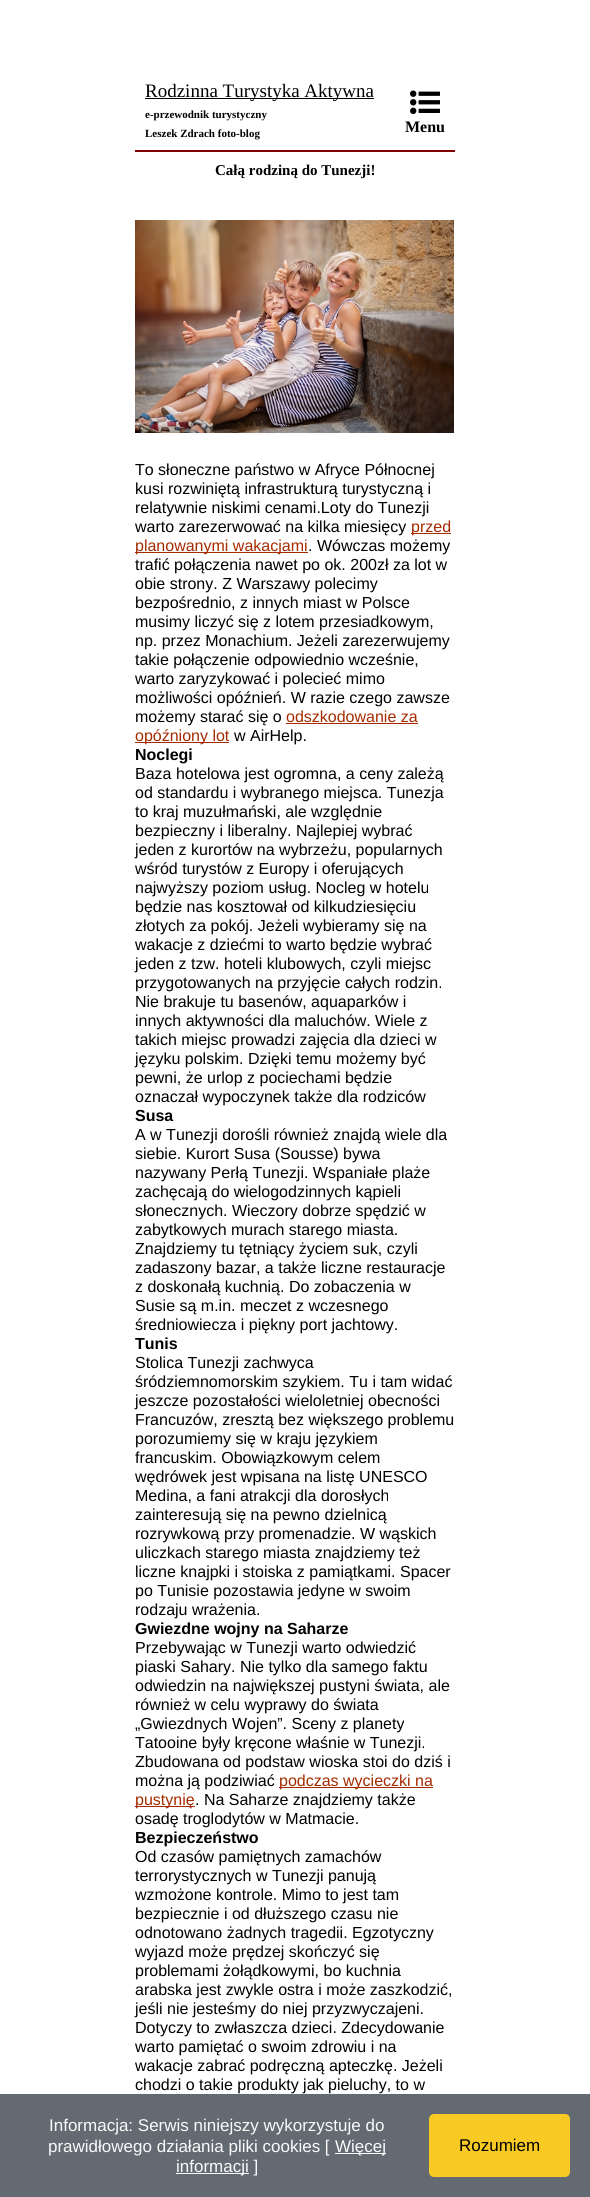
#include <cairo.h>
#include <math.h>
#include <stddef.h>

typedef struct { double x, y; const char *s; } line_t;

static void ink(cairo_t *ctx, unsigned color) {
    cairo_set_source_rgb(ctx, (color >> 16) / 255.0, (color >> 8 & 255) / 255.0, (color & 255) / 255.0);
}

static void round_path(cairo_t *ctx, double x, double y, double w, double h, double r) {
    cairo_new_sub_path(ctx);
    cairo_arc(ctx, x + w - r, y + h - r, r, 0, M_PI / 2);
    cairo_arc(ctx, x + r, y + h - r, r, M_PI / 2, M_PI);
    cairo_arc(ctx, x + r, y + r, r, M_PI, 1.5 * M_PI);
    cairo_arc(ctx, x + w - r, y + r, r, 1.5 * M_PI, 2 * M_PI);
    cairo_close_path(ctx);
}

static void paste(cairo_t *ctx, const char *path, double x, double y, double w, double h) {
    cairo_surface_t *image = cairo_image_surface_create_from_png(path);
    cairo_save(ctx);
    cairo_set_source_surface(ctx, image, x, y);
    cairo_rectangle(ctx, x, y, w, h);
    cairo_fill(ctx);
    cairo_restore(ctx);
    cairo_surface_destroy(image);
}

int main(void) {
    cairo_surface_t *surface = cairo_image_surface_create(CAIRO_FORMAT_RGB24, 590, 2197);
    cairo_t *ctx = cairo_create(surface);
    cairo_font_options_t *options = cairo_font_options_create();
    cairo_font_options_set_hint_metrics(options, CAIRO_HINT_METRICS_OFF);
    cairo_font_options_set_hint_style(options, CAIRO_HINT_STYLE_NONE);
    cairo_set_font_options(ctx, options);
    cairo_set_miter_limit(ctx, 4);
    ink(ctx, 0xFFFFFF);
    cairo_paint(ctx);
    ink(ctx, 0x000000);
    cairo_rectangle(ctx, 145, 98, 229, 1);
    cairo_fill(ctx);
    cairo_select_font_face(ctx, "Liberation Serif", CAIRO_FONT_SLANT_NORMAL, CAIRO_FONT_WEIGHT_NORMAL);
    cairo_set_font_size(ctx, 19);
    cairo_move_to(ctx, 145, 97);
    cairo_show_text(ctx, "Rodzinna Turystyka Aktywna");
    cairo_select_font_face(ctx, "Liberation Serif", CAIRO_FONT_SLANT_NORMAL, CAIRO_FONT_WEIGHT_BOLD);
    cairo_set_font_size(ctx, 11);
    cairo_move_to(ctx, 145, 118);
    cairo_show_text(ctx, "e-przewodnik turystyczny");
    cairo_move_to(ctx, 145, 137);
    cairo_show_text(ctx, "Leszek Zdrach foto-blog");
    paste(ctx, "media/1.png", 410, 90, 30, 25);
    cairo_set_font_size(ctx, 16);
    cairo_move_to(ctx, 405, 132);
    cairo_show_text(ctx, "Menu");
    ink(ctx, 0x800000);
    cairo_rectangle(ctx, 135, 150, 320, 2);
    cairo_fill(ctx);
    cairo_set_font_size(ctx, 15);
    ink(ctx, 0x000000);
    cairo_move_to(ctx, 215, 175);
    cairo_show_text(ctx, "Całą rodziną do Tunezji!");
    paste(ctx, "media/2.png", 135, 220, 319, 213);
    cairo_select_font_face(ctx, "Liberation Sans", CAIRO_FONT_SLANT_NORMAL, CAIRO_FONT_WEIGHT_NORMAL);
    cairo_set_font_size(ctx, 16);
    {
        static const line_t items[] = {
            {135, 475, "To słoneczne państwo w Afryce Północnej"},
            {135, 494, "kusi rozwiniętą infrastrukturą turystyczną i"},
            {135, 513, "relatywnie niskimi cenami.Loty do Tunezji"},
            {135, 532, "warto zarezerwować na kilka miesięcy"},
        };
        for (size_t i = 0; i < sizeof items / sizeof *items; i++) {
            cairo_move_to(ctx, items[i].x, items[i].y);
            cairo_show_text(ctx, items[i].s);
        }
    }
    ink(ctx, 0xA52A00);
    cairo_rectangle(ctx, 411, 533, 40, 1);
    cairo_fill(ctx);
    cairo_move_to(ctx, 411, 532);
    cairo_show_text(ctx, "przed");
    cairo_rectangle(ctx, 135, 552, 173, 1);
    cairo_fill(ctx);
    cairo_move_to(ctx, 135, 551);
    cairo_show_text(ctx, "planowanymi wakacjami");
    ink(ctx, 0x000000);
    {
        static const line_t items[] = {
            {308, 551, ". Wówczas możemy"},
            {135, 570, "trafić połączenia nawet po ok. 200zł za lot w"},
            {135, 589, "obie strony. Z Warszawy polecimy"},
            {135, 608, "bezpośrednio, z innych miast w Polsce"},
            {135, 627, "musimy liczyć się z lotem przesiadkowym,"},
            {135, 646, "np. przez Monachium. Jeżeli zarezerwujemy"},
            {135, 665, "takie połączenie odpowiednio wcześnie,"},
            {135, 684, "warto zaryzykować i polecieć mimo"},
            {135, 703, "możliwości opóźnień. W razie czego zawsze"},
            {135, 722, "możemy starać się o"},
        };
        for (size_t i = 0; i < sizeof items / sizeof *items; i++) {
            cairo_move_to(ctx, items[i].x, items[i].y);
            cairo_show_text(ctx, items[i].s);
        }
    }
    ink(ctx, 0xA52A00);
    cairo_move_to(ctx, 286, 722);
    cairo_show_text(ctx, "odszkodowanie za");
    cairo_rectangle(ctx, 286, 723, 132, 1);
    cairo_fill(ctx);
    cairo_rectangle(ctx, 135, 742, 94, 1);
    cairo_fill(ctx);
    cairo_move_to(ctx, 135, 741);
    cairo_show_text(ctx, "opóźniony lot");
    ink(ctx, 0x000000);
    cairo_move_to(ctx, 234, 741);
    cairo_show_text(ctx, "w AirHelp.");
    cairo_select_font_face(ctx, "Liberation Sans", CAIRO_FONT_SLANT_NORMAL, CAIRO_FONT_WEIGHT_BOLD);
    cairo_move_to(ctx, 135, 760);
    cairo_show_text(ctx, "Noclegi");
    cairo_select_font_face(ctx, "Liberation Sans", CAIRO_FONT_SLANT_NORMAL, CAIRO_FONT_WEIGHT_NORMAL);
    {
        static const line_t items[] = {
            {135, 779, "Baza hotelowa jest ogromna, a ceny zależą"},
            {135, 798, "od standardu i wybranego miejsca. Tunezja"},
            {135, 817, "to kraj muzułmański, ale względnie"},
            {135, 836, "bezpieczny i liberalny. Najlepiej wybrać"},
            {135, 855, "jeden z kurortów na wybrzeżu, popularnych"},
            {135, 874, "wśród turystów z Europy i oferujących"},
            {135, 893, "najwyższy poziom usług. Nocleg w hotelu"},
            {135, 912, "będzie nas kosztował od kilkudziesięciu"},
            {135, 931, "złotych za pokój. Jeżeli wybieramy się na"},
            {135, 950, "wakacje z dziećmi to warto będzie wybrać"},
            {135, 969, "jeden z tzw. hoteli klubowych, czyli miejsc"},
            {135, 988, "przygotowanych na przyjęcie całych rodzin."},
            {135, 1007, "Nie brakuje tu basenów, aquaparków i"},
            {135, 1026, "innych aktywności dla maluchów. Wiele z"},
            {135, 1045, "takich miejsc prowadzi zajęcia dla dzieci w"},
            {135, 1064, "języku polskim. Dzięki temu możemy być"},
            {135, 1083, "pewni, że urlop z pociechami będzie"},
            {135, 1102, "oznaczał wypoczynek także dla rodziców"},
        };
        for (size_t i = 0; i < sizeof items / sizeof *items; i++) {
            cairo_move_to(ctx, items[i].x, items[i].y);
            cairo_show_text(ctx, items[i].s);
        }
    }
    cairo_select_font_face(ctx, "Liberation Sans", CAIRO_FONT_SLANT_NORMAL, CAIRO_FONT_WEIGHT_BOLD);
    cairo_move_to(ctx, 135, 1121);
    cairo_show_text(ctx, "Susa");
    cairo_select_font_face(ctx, "Liberation Sans", CAIRO_FONT_SLANT_NORMAL, CAIRO_FONT_WEIGHT_NORMAL);
    {
        static const line_t items[] = {
            {135, 1140, "A w Tunezji dorośli również znajdą wiele dla"},
            {135, 1159, "siebie. Kurort Susa (Sousse) bywa"},
            {135, 1178, "nazywany Perłą Tunezji. Wspaniałe plaże"},
            {135, 1197, "zachęcają do wielogodzinnych kąpieli"},
            {135, 1216, "słonecznych. Wieczory dobrze spędzić w"},
            {135, 1235, "zabytkowych murach starego miasta."},
            {135, 1254, "Znajdziemy tu tętniący życiem suk, czyli"},
            {135, 1273, "zadaszony bazar, a także liczne restauracje"},
            {135, 1292, "z doskonałą kuchnią. Do zobaczenia w"},
            {135, 1311, "Susie są m.in. meczet z wczesnego"},
            {135, 1330, "średniowiecza i piękny port jachtowy."},
        };
        for (size_t i = 0; i < sizeof items / sizeof *items; i++) {
            cairo_move_to(ctx, items[i].x, items[i].y);
            cairo_show_text(ctx, items[i].s);
        }
    }
    cairo_select_font_face(ctx, "Liberation Sans", CAIRO_FONT_SLANT_NORMAL, CAIRO_FONT_WEIGHT_BOLD);
    cairo_move_to(ctx, 135, 1349);
    cairo_show_text(ctx, "Tunis");
    cairo_select_font_face(ctx, "Liberation Sans", CAIRO_FONT_SLANT_NORMAL, CAIRO_FONT_WEIGHT_NORMAL);
    {
        static const line_t items[] = {
            {135, 1368, "Stolica Tunezji zachwyca"},
            {135, 1387, "śródziemnomorskim szykiem. Tu i tam widać"},
            {135, 1406, "jeszcze pozostałości wieloletniej obecności"},
            {135, 1425, "Francuzów, zresztą bez większego problemu"},
            {135, 1444, "porozumiemy się w kraju językiem"},
            {135, 1463, "francuskim. Obowiązkowym celem"},
            {135, 1482, "wędrówek jest wpisana na listę UNESCO"},
            {135, 1501, "Medina, a fani atrakcji dla dorosłych"},
            {135, 1520, "zainteresują się na pewno dzielnicą"},
            {135, 1539, "rozrywkową przy promenadzie. W wąskich"},
            {135, 1558, "uliczkach starego miasta znajdziemy też"},
            {135, 1577, "liczne knajpki i stoiska z pamiątkami. Spacer"},
            {135, 1596, "po Tunisie pozostawia jedyne w swoim"},
            {135, 1615, "rodzaju wrażenia."},
        };
        for (size_t i = 0; i < sizeof items / sizeof *items; i++) {
            cairo_move_to(ctx, items[i].x, items[i].y);
            cairo_show_text(ctx, items[i].s);
        }
    }
    cairo_select_font_face(ctx, "Liberation Sans", CAIRO_FONT_SLANT_NORMAL, CAIRO_FONT_WEIGHT_BOLD);
    cairo_move_to(ctx, 135, 1634);
    cairo_show_text(ctx, "Gwiezdne wojny na Saharze");
    cairo_select_font_face(ctx, "Liberation Sans", CAIRO_FONT_SLANT_NORMAL, CAIRO_FONT_WEIGHT_NORMAL);
    {
        static const line_t items[] = {
            {135, 1653, "Przebywając w Tunezji warto odwiedzić"},
            {135, 1672, "piaski Sahary. Nie tylko dla samego faktu"},
            {135, 1691, "odwiedzin na największej pustyni świata, ale"},
            {135, 1710, "również w celu wyprawy do świata"},
            {135, 1729, "„Gwiezdnych Wojen”. Sceny z planety"},
            {135, 1748, "Tatooine były kręcone właśnie w Tunezji."},
            {135, 1767, "Zbudowana od podstaw wioska stoi do dziś i"},
            {135, 1786, "można ją podziwiać"},
        };
        for (size_t i = 0; i < sizeof items / sizeof *items; i++) {
            cairo_move_to(ctx, items[i].x, items[i].y);
            cairo_show_text(ctx, items[i].s);
        }
    }
    ink(ctx, 0xA52A00);
    cairo_rectangle(ctx, 279, 1787, 154, 1);
    cairo_fill(ctx);
    cairo_move_to(ctx, 279, 1786);
    cairo_show_text(ctx, "podczas wycieczki na");
    cairo_rectangle(ctx, 135, 1806, 60, 1);
    cairo_fill(ctx);
    cairo_move_to(ctx, 135, 1805);
    cairo_show_text(ctx, "pustynię");
    ink(ctx, 0x000000);
    cairo_move_to(ctx, 195, 1805);
    cairo_show_text(ctx, ". Na Saharze znajdziemy także");
    cairo_move_to(ctx, 135, 1824);
    cairo_show_text(ctx, "osadę troglodytów w Matmacie.");
    cairo_select_font_face(ctx, "Liberation Sans", CAIRO_FONT_SLANT_NORMAL, CAIRO_FONT_WEIGHT_BOLD);
    cairo_move_to(ctx, 135, 1843);
    cairo_show_text(ctx, "Bezpieczeństwo");
    cairo_select_font_face(ctx, "Liberation Sans", CAIRO_FONT_SLANT_NORMAL, CAIRO_FONT_WEIGHT_NORMAL);
    {
        static const line_t items[] = {
            {135, 1862, "Od czasów pamiętnych zamachów"},
            {135, 1881, "terrorystycznych w Tunezji panują"},
            {135, 1900, "wzmożone kontrole. Mimo to jest tam"},
            {135, 1919, "bezpiecznie i od dłuższego czasu nie"},
            {135, 1938, "odnotowano żadnych tragedii. Egzotyczny"},
            {135, 1957, "wyjazd może prędzej skończyć się"},
            {135, 1976, "problemami żołądkowymi, bo kuchnia"},
            {135, 1995, "arabska jest zwykle ostra i może zaszkodzić,"},
            {135, 2014, "jeśli nie jesteśmy do niej przyzwyczajeni."},
            {135, 2033, "Dotyczy to zwłaszcza dzieci. Zdecydowanie"},
            {135, 2052, "warto pamiętać o swoim zdrowiu i na"},
            {135, 2071, "wakacje zabrać podręczną apteczkę. Jeżeli"},
            {135, 2090, "chodzi o takie produkty jak pieluchy, to w"},
        };
        for (size_t i = 0; i < sizeof items / sizeof *items; i++) {
            cairo_move_to(ctx, items[i].x, items[i].y);
            cairo_show_text(ctx, items[i].s);
        }
    }
    ink(ctx, 0x636A71);
    cairo_rectangle(ctx, 0, 2094, 590, 103);
    cairo_fill(ctx);
    cairo_set_font_size(ctx, 17);
    ink(ctx, 0xFAFAFA);
    cairo_move_to(ctx, 49, 2131);
    cairo_show_text(ctx, "Informacja: Serwis niniejszy wykorzystuje do");
    cairo_move_to(ctx, 48, 2152);
    cairo_show_text(ctx, "prawidłowego działania pliki cookies [");
    cairo_rectangle(ctx, 335, 2153, 51, 1);
    cairo_fill(ctx);
    cairo_move_to(ctx, 335, 2152);
    cairo_show_text(ctx, "Więcej");
    cairo_rectangle(ctx, 176, 2173, 73, 1);
    cairo_fill(ctx);
    cairo_move_to(ctx, 176, 2172);
    cairo_show_text(ctx, "informacji ]");
    ink(ctx, 0xF9CA24);
    round_path(ctx, 429, 2114, 141, 63, 5);
    cairo_fill(ctx);
    ink(ctx, 0x000000);
    cairo_move_to(ctx, 459, 2151);
    cairo_show_text(ctx, "Rozumiem");
    cairo_surface_write_to_png(surface, "image.png");
    cairo_font_options_destroy(options);
    cairo_destroy(ctx);
    cairo_surface_destroy(surface);
    return 0;
}
